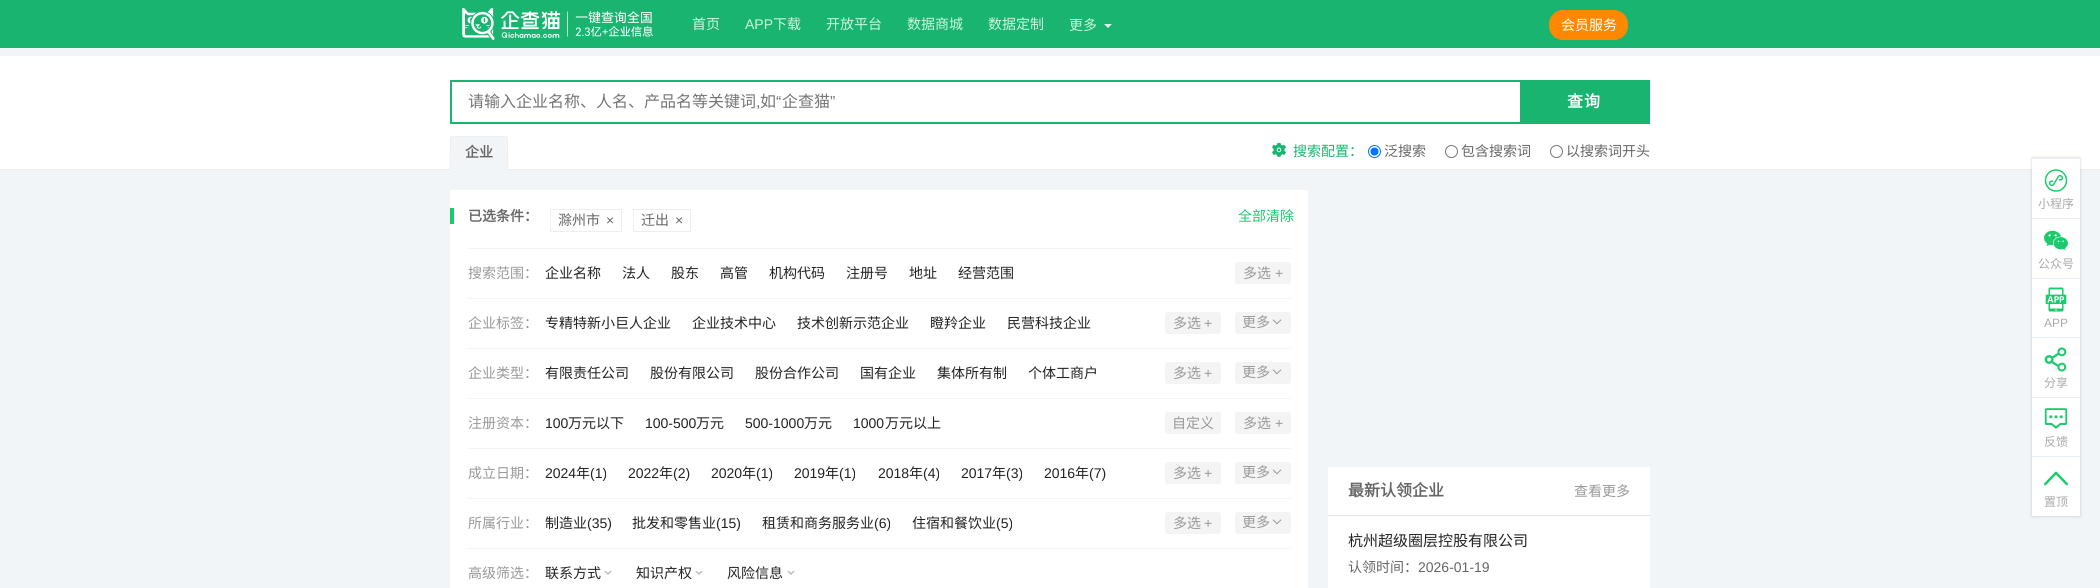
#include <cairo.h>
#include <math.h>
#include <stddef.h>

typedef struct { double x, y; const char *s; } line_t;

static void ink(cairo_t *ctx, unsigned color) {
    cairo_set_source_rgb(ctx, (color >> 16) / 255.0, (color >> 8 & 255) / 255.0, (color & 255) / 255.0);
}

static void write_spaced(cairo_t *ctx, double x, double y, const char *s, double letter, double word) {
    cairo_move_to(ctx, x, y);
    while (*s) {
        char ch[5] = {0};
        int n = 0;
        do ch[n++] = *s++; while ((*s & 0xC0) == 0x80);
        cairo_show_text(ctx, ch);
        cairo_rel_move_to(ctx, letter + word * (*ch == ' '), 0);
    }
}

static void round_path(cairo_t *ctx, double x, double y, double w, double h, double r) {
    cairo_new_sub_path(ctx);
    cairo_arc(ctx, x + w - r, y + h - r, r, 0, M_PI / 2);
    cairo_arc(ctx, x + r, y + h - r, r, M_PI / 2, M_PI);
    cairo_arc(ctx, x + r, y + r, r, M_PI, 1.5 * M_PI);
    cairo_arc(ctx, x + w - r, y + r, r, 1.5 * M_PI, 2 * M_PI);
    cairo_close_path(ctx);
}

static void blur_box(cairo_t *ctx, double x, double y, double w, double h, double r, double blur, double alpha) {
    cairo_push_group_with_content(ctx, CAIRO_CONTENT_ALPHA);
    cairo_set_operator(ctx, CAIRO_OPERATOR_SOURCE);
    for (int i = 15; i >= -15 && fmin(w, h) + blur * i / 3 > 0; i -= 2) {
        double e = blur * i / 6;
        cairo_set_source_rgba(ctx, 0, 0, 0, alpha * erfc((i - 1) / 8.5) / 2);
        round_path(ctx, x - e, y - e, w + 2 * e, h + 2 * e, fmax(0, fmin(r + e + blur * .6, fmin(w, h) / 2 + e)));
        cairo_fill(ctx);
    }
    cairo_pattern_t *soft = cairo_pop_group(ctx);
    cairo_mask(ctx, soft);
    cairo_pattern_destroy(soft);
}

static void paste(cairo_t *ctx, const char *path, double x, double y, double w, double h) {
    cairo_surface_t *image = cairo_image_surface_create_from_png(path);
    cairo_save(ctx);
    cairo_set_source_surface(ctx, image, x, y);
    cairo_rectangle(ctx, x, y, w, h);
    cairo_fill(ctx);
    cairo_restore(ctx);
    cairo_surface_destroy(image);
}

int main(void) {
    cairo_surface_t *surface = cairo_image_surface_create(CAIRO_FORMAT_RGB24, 2100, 588);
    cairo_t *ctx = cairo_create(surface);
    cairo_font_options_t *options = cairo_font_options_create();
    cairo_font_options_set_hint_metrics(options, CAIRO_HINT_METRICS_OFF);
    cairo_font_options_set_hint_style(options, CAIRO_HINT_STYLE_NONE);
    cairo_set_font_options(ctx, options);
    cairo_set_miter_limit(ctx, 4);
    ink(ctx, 0xF1F5F8);
    cairo_paint(ctx);
    ink(ctx, 0x18B470);
    cairo_rectangle(ctx, 0, 0, 2100, 48);
    cairo_fill(ctx);
    paste(ctx, "media/1.png", 462, 8, 191, 32);
    cairo_select_font_face(ctx, "Noto Sans CJK SC", CAIRO_FONT_SLANT_NORMAL, CAIRO_FONT_WEIGHT_NORMAL);
    cairo_set_font_size(ctx, 14);
    ink(ctx, 0xC9F8DF);
    cairo_move_to(ctx, 692, 29);
    cairo_show_text(ctx, "首页");
    cairo_select_font_face(ctx, "Liberation Sans", CAIRO_FONT_SLANT_NORMAL, CAIRO_FONT_WEIGHT_NORMAL);
    cairo_move_to(ctx, 745, 29);
    cairo_show_text(ctx, "APP");
    cairo_select_font_face(ctx, "Noto Sans CJK SC", CAIRO_FONT_SLANT_NORMAL, CAIRO_FONT_WEIGHT_NORMAL);
    {
        static const line_t items[] = {
            {773, 29, "下载"},
            {826, 29, "开放平台"},
            {907, 29, "数据商城"},
            {988, 29, "数据定制"},
            {1069, 30, "更多"},
        };
        for (size_t i = 0; i < sizeof items / sizeof *items; i++) {
            cairo_move_to(ctx, items[i].x, items[i].y);
            cairo_show_text(ctx, items[i].s);
        }
    }
    ink(ctx, 0xDCF4EA);
    cairo_new_path(ctx);
    cairo_move_to(ctx, 1104, 24);
    cairo_line_to(ctx, 1112, 24);
    cairo_line_to(ctx, 1108, 28);
    cairo_close_path(ctx);
    cairo_fill(ctx);
    ink(ctx, 0xFF8800);
    round_path(ctx, 1549, 10, 79, 30, 14);
    cairo_fill(ctx);
    ink(ctx, 0xFFFFFF);
    cairo_move_to(ctx, 1561, 30);
    cairo_show_text(ctx, "会员服务");
    cairo_rectangle(ctx, 0, 56, 2100, 113);
    cairo_fill(ctx);
    ink(ctx, 0xEEEEEE);
    cairo_rectangle(ctx, 0, 169, 2100, 1);
    cairo_fill(ctx);
    cairo_rectangle(ctx, 451, 81, 1198, 42);
    ink(ctx, 0x18B470);
    cairo_stroke(ctx);
    cairo_set_font_size(ctx, 16);
    ink(ctx, 0x757575);
    cairo_move_to(ctx, 468, 107);
    cairo_show_text(ctx, "请输入企业名称、人名、产品名等关键词");
    cairo_move_to(ctx, 760, 107);
    cairo_show_text(ctx, "如");
    cairo_select_font_face(ctx, "Liberation Sans", CAIRO_FONT_SLANT_NORMAL, CAIRO_FONT_WEIGHT_NORMAL);
    cairo_move_to(ctx, 776, 107);
    cairo_show_text(ctx, "“");
    cairo_select_font_face(ctx, "Noto Sans CJK SC", CAIRO_FONT_SLANT_NORMAL, CAIRO_FONT_WEIGHT_NORMAL);
    cairo_move_to(ctx, 782, 107);
    cairo_show_text(ctx, "企查猫");
    cairo_select_font_face(ctx, "Liberation Sans", CAIRO_FONT_SLANT_NORMAL, CAIRO_FONT_WEIGHT_NORMAL);
    cairo_move_to(ctx, 830, 107);
    cairo_show_text(ctx, "”");
    cairo_move_to(ctx, 756, 107);
    cairo_show_text(ctx, ",");
    ink(ctx, 0x18B470);
    cairo_rectangle(ctx, 1520, 82, 128, 40);
    cairo_fill(ctx);
    cairo_select_font_face(ctx, "Noto Sans CJK SC", CAIRO_FONT_SLANT_NORMAL, CAIRO_FONT_WEIGHT_BOLD);
    ink(ctx, 0xFFFFFF);
    write_spaced(ctx, 1567, 107, "查询", 1, 0);
    ink(ctx, 0xF1F5F8);
    round_path(ctx, 450, 136, 58, 34, 2);
    cairo_fill(ctx);
    cairo_new_path(ctx);
    cairo_move_to(ctx, 451, 169);
    cairo_curve_to(ctx, 449.5, 167.5, 450.5, 155.5, 450.5, 153);
    cairo_line_to(ctx, 450.5, 143);
    cairo_curve_to(ctx, 450.5, 134, 450, 136.5, 461, 136.5);
    cairo_line_to(ctx, 497, 136.5);
    cairo_curve_to(ctx, 508, 136.5, 507.5, 134, 507.5, 143);
    cairo_line_to(ctx, 507.5, 153);
    cairo_curve_to(ctx, 507.5, 155.5, 508.5, 167.5, 507, 169);
    ink(ctx, 0xEEEEEE);
    cairo_set_line_width(ctx, 1);
    cairo_stroke(ctx);
    cairo_set_font_size(ctx, 14);
    ink(ctx, 0x666666);
    cairo_move_to(ctx, 465, 157);
    cairo_show_text(ctx, "企业");
    paste(ctx, "media/2.png", 1272, 142, 14, 15);
    cairo_select_font_face(ctx, "Noto Sans CJK SC", CAIRO_FONT_SLANT_NORMAL, CAIRO_FONT_WEIGHT_NORMAL);
    ink(ctx, 0x18B470);
    cairo_move_to(ctx, 1293, 156);
    cairo_show_text(ctx, "搜索配置：");
    cairo_new_path(ctx);
    cairo_arc(ctx, 1374.5, 151.5, 6, 0, 2 * M_PI);
    ink(ctx, 0x0075FF);
    cairo_stroke(ctx);
    cairo_arc(ctx, 1374.5, 151.5, 4, 0, 2 * M_PI);
    cairo_fill(ctx);
    ink(ctx, 0x666666);
    cairo_move_to(ctx, 1384, 156);
    cairo_show_text(ctx, "泛搜索");
    cairo_new_path(ctx);
    cairo_arc(ctx, 1451.5, 151.5, 6, 0, 2 * M_PI);
    ink(ctx, 0x767676);
    cairo_stroke(ctx);
    ink(ctx, 0x666666);
    cairo_move_to(ctx, 1461, 156);
    cairo_show_text(ctx, "包含搜索词");
    cairo_new_path(ctx);
    cairo_arc(ctx, 1556.5, 151.5, 6, 0, 2 * M_PI);
    ink(ctx, 0x767676);
    cairo_stroke(ctx);
    ink(ctx, 0x666666);
    cairo_move_to(ctx, 1566, 156);
    cairo_show_text(ctx, "以搜索词开头");
    ink(ctx, 0xFFFFFF);
    cairo_rectangle(ctx, 450, 190, 858, 398);
    cairo_fill(ctx);
    ink(ctx, 0x1ACB6D);
    cairo_rectangle(ctx, 450, 208, 4, 16);
    cairo_fill(ctx);
    cairo_select_font_face(ctx, "Noto Sans CJK SC", CAIRO_FONT_SLANT_NORMAL, CAIRO_FONT_WEIGHT_BOLD);
    ink(ctx, 0x666666);
    cairo_move_to(ctx, 468, 221);
    cairo_show_text(ctx, "已选条件：");
    cairo_rectangle(ctx, 550.5, 209.5, 71, 22);
    ink(ctx, 0xEEEEEE);
    cairo_stroke(ctx);
    cairo_select_font_face(ctx, "Noto Sans CJK SC", CAIRO_FONT_SLANT_NORMAL, CAIRO_FONT_WEIGHT_NORMAL);
    ink(ctx, 0x666666);
    cairo_move_to(ctx, 558, 225);
    cairo_show_text(ctx, "滁州市");
    cairo_select_font_face(ctx, "Liberation Sans", CAIRO_FONT_SLANT_NORMAL, CAIRO_FONT_WEIGHT_NORMAL);
    cairo_move_to(ctx, 606, 225);
    cairo_show_text(ctx, "×");
    cairo_rectangle(ctx, 633.5, 209.5, 57, 22);
    ink(ctx, 0xEEEEEE);
    cairo_stroke(ctx);
    cairo_select_font_face(ctx, "Noto Sans CJK SC", CAIRO_FONT_SLANT_NORMAL, CAIRO_FONT_WEIGHT_NORMAL);
    ink(ctx, 0x666666);
    cairo_move_to(ctx, 641, 225);
    cairo_show_text(ctx, "迁出");
    cairo_select_font_face(ctx, "Liberation Sans", CAIRO_FONT_SLANT_NORMAL, CAIRO_FONT_WEIGHT_NORMAL);
    cairo_move_to(ctx, 675, 225);
    cairo_show_text(ctx, "×");
    cairo_select_font_face(ctx, "Noto Sans CJK SC", CAIRO_FONT_SLANT_NORMAL, CAIRO_FONT_WEIGHT_NORMAL);
    ink(ctx, 0x1ACB6D);
    cairo_move_to(ctx, 1238, 221);
    cairo_show_text(ctx, "全部清除");
    ink(ctx, 0xF4F4F4);
    cairo_rectangle(ctx, 468, 248, 823, 1);
    cairo_fill(ctx);
    ink(ctx, 0x999999);
    cairo_move_to(ctx, 468, 278);
    cairo_show_text(ctx, "搜索范围：");
    ink(ctx, 0x222222);
    {
        static const line_t items[] = {
            {545, 278, "企业名称"},
            {622, 278, "法人"},
            {671, 278, "股东"},
            {720, 278, "高管"},
            {769, 278, "机构代码"},
            {846, 278, "注册号"},
            {909, 278, "地址"},
            {958, 278, "经营范围"},
        };
        for (size_t i = 0; i < sizeof items / sizeof *items; i++) {
            cairo_move_to(ctx, items[i].x, items[i].y);
            cairo_show_text(ctx, items[i].s);
        }
    }
    ink(ctx, 0xF4F4F4);
    round_path(ctx, 1235, 262, 56, 22, 3);
    cairo_fill(ctx);
    ink(ctx, 0x999999);
    cairo_move_to(ctx, 1243, 278);
    cairo_show_text(ctx, "多选");
    cairo_select_font_face(ctx, "Liberation Sans", CAIRO_FONT_SLANT_NORMAL, CAIRO_FONT_WEIGHT_NORMAL);
    cairo_move_to(ctx, 1275, 278);
    cairo_show_text(ctx, "+");
    ink(ctx, 0xF4F4F4);
    cairo_rectangle(ctx, 468, 298, 823, 1);
    cairo_fill(ctx);
    cairo_select_font_face(ctx, "Noto Sans CJK SC", CAIRO_FONT_SLANT_NORMAL, CAIRO_FONT_WEIGHT_NORMAL);
    ink(ctx, 0x999999);
    cairo_move_to(ctx, 468, 328);
    cairo_show_text(ctx, "企业标签：");
    ink(ctx, 0x222222);
    {
        static const line_t items[] = {
            {545, 328, "专精特新小巨人企业"},
            {692, 328, "企业技术中心"},
            {797, 328, "技术创新示范企业"},
            {930, 328, "瞪羚企业"},
            {1007, 328, "民营科技企业"},
        };
        for (size_t i = 0; i < sizeof items / sizeof *items; i++) {
            cairo_move_to(ctx, items[i].x, items[i].y);
            cairo_show_text(ctx, items[i].s);
        }
    }
    ink(ctx, 0xF4F4F4);
    round_path(ctx, 1165, 312, 56, 22, 3);
    cairo_fill(ctx);
    ink(ctx, 0x999999);
    cairo_move_to(ctx, 1173, 328);
    cairo_show_text(ctx, "多选");
    cairo_select_font_face(ctx, "Liberation Sans", CAIRO_FONT_SLANT_NORMAL, CAIRO_FONT_WEIGHT_NORMAL);
    cairo_move_to(ctx, 1204, 328);
    cairo_show_text(ctx, "+");
    ink(ctx, 0xF4F4F4);
    round_path(ctx, 1235, 312, 56, 22, 3);
    cairo_fill(ctx);
    cairo_select_font_face(ctx, "Noto Sans CJK SC", CAIRO_FONT_SLANT_NORMAL, CAIRO_FONT_WEIGHT_NORMAL);
    ink(ctx, 0x999999);
    cairo_move_to(ctx, 1242, 327);
    cairo_show_text(ctx, "更多");
    paste(ctx, "media/3.png", 1272, 319, 10, 6);
    ink(ctx, 0xF4F4F4);
    cairo_rectangle(ctx, 468, 348, 823, 1);
    cairo_fill(ctx);
    ink(ctx, 0x999999);
    cairo_move_to(ctx, 468, 378);
    cairo_show_text(ctx, "企业类型：");
    ink(ctx, 0x222222);
    {
        static const line_t items[] = {
            {545, 378, "有限责任公司"},
            {650, 378, "股份有限公司"},
            {755, 378, "股份合作公司"},
            {860, 378, "国有企业"},
            {937, 378, "集体所有制"},
            {1028, 378, "个体工商户"},
        };
        for (size_t i = 0; i < sizeof items / sizeof *items; i++) {
            cairo_move_to(ctx, items[i].x, items[i].y);
            cairo_show_text(ctx, items[i].s);
        }
    }
    ink(ctx, 0xF4F4F4);
    round_path(ctx, 1165, 362, 56, 22, 3);
    cairo_fill(ctx);
    ink(ctx, 0x999999);
    cairo_move_to(ctx, 1173, 378);
    cairo_show_text(ctx, "多选");
    cairo_select_font_face(ctx, "Liberation Sans", CAIRO_FONT_SLANT_NORMAL, CAIRO_FONT_WEIGHT_NORMAL);
    cairo_move_to(ctx, 1204, 378);
    cairo_show_text(ctx, "+");
    ink(ctx, 0xF4F4F4);
    round_path(ctx, 1235, 362, 56, 22, 3);
    cairo_fill(ctx);
    cairo_select_font_face(ctx, "Noto Sans CJK SC", CAIRO_FONT_SLANT_NORMAL, CAIRO_FONT_WEIGHT_NORMAL);
    ink(ctx, 0x999999);
    cairo_move_to(ctx, 1242, 377);
    cairo_show_text(ctx, "更多");
    paste(ctx, "media/3.png", 1272, 369, 10, 6);
    ink(ctx, 0xF4F4F4);
    cairo_rectangle(ctx, 468, 398, 823, 1);
    cairo_fill(ctx);
    ink(ctx, 0x999999);
    cairo_move_to(ctx, 468, 428);
    cairo_show_text(ctx, "注册资本：");
    cairo_select_font_face(ctx, "Liberation Sans", CAIRO_FONT_SLANT_NORMAL, CAIRO_FONT_WEIGHT_NORMAL);
    ink(ctx, 0x222222);
    cairo_move_to(ctx, 545, 428);
    cairo_show_text(ctx, "100");
    cairo_select_font_face(ctx, "Noto Sans CJK SC", CAIRO_FONT_SLANT_NORMAL, CAIRO_FONT_WEIGHT_NORMAL);
    cairo_move_to(ctx, 568, 428);
    cairo_show_text(ctx, "万元以下");
    cairo_select_font_face(ctx, "Liberation Sans", CAIRO_FONT_SLANT_NORMAL, CAIRO_FONT_WEIGHT_NORMAL);
    cairo_move_to(ctx, 645, 428);
    cairo_show_text(ctx, "100-500");
    cairo_select_font_face(ctx, "Noto Sans CJK SC", CAIRO_FONT_SLANT_NORMAL, CAIRO_FONT_WEIGHT_NORMAL);
    cairo_move_to(ctx, 696, 428);
    cairo_show_text(ctx, "万元");
    cairo_select_font_face(ctx, "Liberation Sans", CAIRO_FONT_SLANT_NORMAL, CAIRO_FONT_WEIGHT_NORMAL);
    cairo_move_to(ctx, 745, 428);
    cairo_show_text(ctx, "500-1000");
    cairo_select_font_face(ctx, "Noto Sans CJK SC", CAIRO_FONT_SLANT_NORMAL, CAIRO_FONT_WEIGHT_NORMAL);
    cairo_move_to(ctx, 804, 428);
    cairo_show_text(ctx, "万元");
    cairo_select_font_face(ctx, "Liberation Sans", CAIRO_FONT_SLANT_NORMAL, CAIRO_FONT_WEIGHT_NORMAL);
    cairo_move_to(ctx, 853, 428);
    cairo_show_text(ctx, "1000");
    cairo_select_font_face(ctx, "Noto Sans CJK SC", CAIRO_FONT_SLANT_NORMAL, CAIRO_FONT_WEIGHT_NORMAL);
    cairo_move_to(ctx, 885, 428);
    cairo_show_text(ctx, "万元以上");
    ink(ctx, 0xF4F4F4);
    round_path(ctx, 1165, 412, 56, 22, 3);
    cairo_fill(ctx);
    ink(ctx, 0x999999);
    cairo_move_to(ctx, 1172, 428);
    cairo_show_text(ctx, "自定义");
    ink(ctx, 0xF4F4F4);
    round_path(ctx, 1235, 412, 56, 22, 3);
    cairo_fill(ctx);
    ink(ctx, 0x999999);
    cairo_move_to(ctx, 1243, 428);
    cairo_show_text(ctx, "多选");
    cairo_select_font_face(ctx, "Liberation Sans", CAIRO_FONT_SLANT_NORMAL, CAIRO_FONT_WEIGHT_NORMAL);
    cairo_move_to(ctx, 1275, 428);
    cairo_show_text(ctx, "+");
    ink(ctx, 0xF4F4F4);
    cairo_rectangle(ctx, 468, 448, 823, 1);
    cairo_fill(ctx);
    cairo_select_font_face(ctx, "Noto Sans CJK SC", CAIRO_FONT_SLANT_NORMAL, CAIRO_FONT_WEIGHT_NORMAL);
    ink(ctx, 0x999999);
    cairo_move_to(ctx, 468, 478);
    cairo_show_text(ctx, "成立日期：");
    cairo_select_font_face(ctx, "Liberation Sans", CAIRO_FONT_SLANT_NORMAL, CAIRO_FONT_WEIGHT_NORMAL);
    ink(ctx, 0x222222);
    cairo_move_to(ctx, 545, 478);
    cairo_show_text(ctx, "2024");
    cairo_select_font_face(ctx, "Noto Sans CJK SC", CAIRO_FONT_SLANT_NORMAL, CAIRO_FONT_WEIGHT_NORMAL);
    cairo_move_to(ctx, 576, 478);
    cairo_show_text(ctx, "年");
    cairo_select_font_face(ctx, "Liberation Sans", CAIRO_FONT_SLANT_NORMAL, CAIRO_FONT_WEIGHT_NORMAL);
    cairo_move_to(ctx, 590, 478);
    cairo_show_text(ctx, "(1)");
    cairo_move_to(ctx, 628, 478);
    cairo_show_text(ctx, "2022");
    cairo_select_font_face(ctx, "Noto Sans CJK SC", CAIRO_FONT_SLANT_NORMAL, CAIRO_FONT_WEIGHT_NORMAL);
    cairo_move_to(ctx, 659, 478);
    cairo_show_text(ctx, "年");
    cairo_select_font_face(ctx, "Liberation Sans", CAIRO_FONT_SLANT_NORMAL, CAIRO_FONT_WEIGHT_NORMAL);
    cairo_move_to(ctx, 673, 478);
    cairo_show_text(ctx, "(2)");
    cairo_move_to(ctx, 711, 478);
    cairo_show_text(ctx, "2020");
    cairo_select_font_face(ctx, "Noto Sans CJK SC", CAIRO_FONT_SLANT_NORMAL, CAIRO_FONT_WEIGHT_NORMAL);
    cairo_move_to(ctx, 742, 478);
    cairo_show_text(ctx, "年");
    cairo_select_font_face(ctx, "Liberation Sans", CAIRO_FONT_SLANT_NORMAL, CAIRO_FONT_WEIGHT_NORMAL);
    cairo_move_to(ctx, 756, 478);
    cairo_show_text(ctx, "(1)");
    cairo_move_to(ctx, 794, 478);
    cairo_show_text(ctx, "2019");
    cairo_select_font_face(ctx, "Noto Sans CJK SC", CAIRO_FONT_SLANT_NORMAL, CAIRO_FONT_WEIGHT_NORMAL);
    cairo_move_to(ctx, 825, 478);
    cairo_show_text(ctx, "年");
    cairo_select_font_face(ctx, "Liberation Sans", CAIRO_FONT_SLANT_NORMAL, CAIRO_FONT_WEIGHT_NORMAL);
    cairo_move_to(ctx, 839, 478);
    cairo_show_text(ctx, "(1)");
    cairo_move_to(ctx, 878, 478);
    cairo_show_text(ctx, "2018");
    cairo_select_font_face(ctx, "Noto Sans CJK SC", CAIRO_FONT_SLANT_NORMAL, CAIRO_FONT_WEIGHT_NORMAL);
    cairo_move_to(ctx, 909, 478);
    cairo_show_text(ctx, "年");
    cairo_select_font_face(ctx, "Liberation Sans", CAIRO_FONT_SLANT_NORMAL, CAIRO_FONT_WEIGHT_NORMAL);
    cairo_move_to(ctx, 923, 478);
    cairo_show_text(ctx, "(4)");
    cairo_move_to(ctx, 961, 478);
    cairo_show_text(ctx, "2017");
    cairo_select_font_face(ctx, "Noto Sans CJK SC", CAIRO_FONT_SLANT_NORMAL, CAIRO_FONT_WEIGHT_NORMAL);
    cairo_move_to(ctx, 992, 478);
    cairo_show_text(ctx, "年");
    cairo_select_font_face(ctx, "Liberation Sans", CAIRO_FONT_SLANT_NORMAL, CAIRO_FONT_WEIGHT_NORMAL);
    cairo_move_to(ctx, 1006, 478);
    cairo_show_text(ctx, "(3)");
    cairo_move_to(ctx, 1044, 478);
    cairo_show_text(ctx, "2016");
    cairo_select_font_face(ctx, "Noto Sans CJK SC", CAIRO_FONT_SLANT_NORMAL, CAIRO_FONT_WEIGHT_NORMAL);
    cairo_move_to(ctx, 1075, 478);
    cairo_show_text(ctx, "年");
    cairo_select_font_face(ctx, "Liberation Sans", CAIRO_FONT_SLANT_NORMAL, CAIRO_FONT_WEIGHT_NORMAL);
    cairo_move_to(ctx, 1089, 478);
    cairo_show_text(ctx, "(7)");
    ink(ctx, 0xF4F4F4);
    round_path(ctx, 1165, 462, 56, 22, 3);
    cairo_fill(ctx);
    cairo_select_font_face(ctx, "Noto Sans CJK SC", CAIRO_FONT_SLANT_NORMAL, CAIRO_FONT_WEIGHT_NORMAL);
    ink(ctx, 0x999999);
    cairo_move_to(ctx, 1173, 478);
    cairo_show_text(ctx, "多选");
    cairo_select_font_face(ctx, "Liberation Sans", CAIRO_FONT_SLANT_NORMAL, CAIRO_FONT_WEIGHT_NORMAL);
    cairo_move_to(ctx, 1204, 478);
    cairo_show_text(ctx, "+");
    ink(ctx, 0xF4F4F4);
    round_path(ctx, 1235, 462, 56, 22, 3);
    cairo_fill(ctx);
    cairo_select_font_face(ctx, "Noto Sans CJK SC", CAIRO_FONT_SLANT_NORMAL, CAIRO_FONT_WEIGHT_NORMAL);
    ink(ctx, 0x999999);
    cairo_move_to(ctx, 1242, 477);
    cairo_show_text(ctx, "更多");
    paste(ctx, "media/3.png", 1272, 469, 10, 6);
    ink(ctx, 0xF4F4F4);
    cairo_rectangle(ctx, 468, 498, 823, 1);
    cairo_fill(ctx);
    ink(ctx, 0x999999);
    cairo_move_to(ctx, 468, 528);
    cairo_show_text(ctx, "所属行业：");
    ink(ctx, 0x222222);
    cairo_move_to(ctx, 545, 528);
    cairo_show_text(ctx, "制造业");
    cairo_select_font_face(ctx, "Liberation Sans", CAIRO_FONT_SLANT_NORMAL, CAIRO_FONT_WEIGHT_NORMAL);
    cairo_move_to(ctx, 587, 528);
    cairo_show_text(ctx, "(35)");
    cairo_select_font_face(ctx, "Noto Sans CJK SC", CAIRO_FONT_SLANT_NORMAL, CAIRO_FONT_WEIGHT_NORMAL);
    cairo_move_to(ctx, 632, 528);
    cairo_show_text(ctx, "批发和零售业");
    cairo_select_font_face(ctx, "Liberation Sans", CAIRO_FONT_SLANT_NORMAL, CAIRO_FONT_WEIGHT_NORMAL);
    cairo_move_to(ctx, 716, 528);
    cairo_show_text(ctx, "(15)");
    cairo_select_font_face(ctx, "Noto Sans CJK SC", CAIRO_FONT_SLANT_NORMAL, CAIRO_FONT_WEIGHT_NORMAL);
    cairo_move_to(ctx, 762, 528);
    cairo_show_text(ctx, "租赁和商务服务业");
    cairo_select_font_face(ctx, "Liberation Sans", CAIRO_FONT_SLANT_NORMAL, CAIRO_FONT_WEIGHT_NORMAL);
    cairo_move_to(ctx, 874, 528);
    cairo_show_text(ctx, "(6)");
    cairo_select_font_face(ctx, "Noto Sans CJK SC", CAIRO_FONT_SLANT_NORMAL, CAIRO_FONT_WEIGHT_NORMAL);
    cairo_move_to(ctx, 912, 528);
    cairo_show_text(ctx, "住宿和餐饮业");
    cairo_select_font_face(ctx, "Liberation Sans", CAIRO_FONT_SLANT_NORMAL, CAIRO_FONT_WEIGHT_NORMAL);
    cairo_move_to(ctx, 996, 528);
    cairo_show_text(ctx, "(5)");
    ink(ctx, 0xF4F4F4);
    round_path(ctx, 1165, 512, 56, 22, 3);
    cairo_fill(ctx);
    cairo_select_font_face(ctx, "Noto Sans CJK SC", CAIRO_FONT_SLANT_NORMAL, CAIRO_FONT_WEIGHT_NORMAL);
    ink(ctx, 0x999999);
    cairo_move_to(ctx, 1173, 528);
    cairo_show_text(ctx, "多选");
    cairo_select_font_face(ctx, "Liberation Sans", CAIRO_FONT_SLANT_NORMAL, CAIRO_FONT_WEIGHT_NORMAL);
    cairo_move_to(ctx, 1204, 528);
    cairo_show_text(ctx, "+");
    ink(ctx, 0xF4F4F4);
    round_path(ctx, 1235, 512, 56, 22, 3);
    cairo_fill(ctx);
    cairo_select_font_face(ctx, "Noto Sans CJK SC", CAIRO_FONT_SLANT_NORMAL, CAIRO_FONT_WEIGHT_NORMAL);
    ink(ctx, 0x999999);
    cairo_move_to(ctx, 1242, 527);
    cairo_show_text(ctx, "更多");
    paste(ctx, "media/3.png", 1272, 519, 10, 6);
    ink(ctx, 0xF4F4F4);
    cairo_rectangle(ctx, 468, 548, 823, 1);
    cairo_fill(ctx);
    ink(ctx, 0x999999);
    cairo_move_to(ctx, 468, 578);
    cairo_show_text(ctx, "高级筛选：");
    ink(ctx, 0x222222);
    cairo_move_to(ctx, 545, 578);
    cairo_show_text(ctx, "联系方式");
    ink(ctx, 0xBBBBBB);
    cairo_new_path(ctx);
    cairo_move_to(ctx, 604, 571);
    cairo_line_to(ctx, 612, 571);
    cairo_line_to(ctx, 608, 575);
    cairo_close_path(ctx);
    cairo_fill(ctx);
    ink(ctx, 0xFFFFFF);
    cairo_new_path(ctx);
    cairo_move_to(ctx, 606, 571);
    cairo_line_to(ctx, 610, 571);
    cairo_line_to(ctx, 608, 573);
    cairo_close_path(ctx);
    cairo_fill(ctx);
    ink(ctx, 0x222222);
    cairo_move_to(ctx, 636, 578);
    cairo_show_text(ctx, "知识产权");
    ink(ctx, 0xBBBBBB);
    cairo_new_path(ctx);
    cairo_move_to(ctx, 695, 571);
    cairo_line_to(ctx, 703, 571);
    cairo_line_to(ctx, 699, 575);
    cairo_close_path(ctx);
    cairo_fill(ctx);
    ink(ctx, 0xFFFFFF);
    cairo_new_path(ctx);
    cairo_move_to(ctx, 697, 571);
    cairo_line_to(ctx, 701, 571);
    cairo_line_to(ctx, 699, 573);
    cairo_close_path(ctx);
    cairo_fill(ctx);
    ink(ctx, 0x222222);
    cairo_move_to(ctx, 727, 578);
    cairo_show_text(ctx, "风险信息");
    ink(ctx, 0xBBBBBB);
    cairo_new_path(ctx);
    cairo_move_to(ctx, 787, 571);
    cairo_line_to(ctx, 795, 571);
    cairo_line_to(ctx, 791, 575);
    cairo_close_path(ctx);
    cairo_fill(ctx);
    ink(ctx, 0xFFFFFF);
    cairo_new_path(ctx);
    cairo_move_to(ctx, 789, 571);
    cairo_line_to(ctx, 793, 571);
    cairo_line_to(ctx, 791, 573);
    cairo_close_path(ctx);
    cairo_fill(ctx);
    cairo_rectangle(ctx, 1328, 467, 322, 121);
    cairo_fill(ctx);
    ink(ctx, 0xE6E6E6);
    cairo_rectangle(ctx, 1328, 515, 322, 1);
    cairo_fill(ctx);
    cairo_select_font_face(ctx, "Noto Sans CJK SC", CAIRO_FONT_SLANT_NORMAL, CAIRO_FONT_WEIGHT_BOLD);
    cairo_set_font_size(ctx, 16);
    ink(ctx, 0x666666);
    cairo_move_to(ctx, 1348, 496);
    cairo_show_text(ctx, "最新认领企业");
    cairo_select_font_face(ctx, "Noto Sans CJK SC", CAIRO_FONT_SLANT_NORMAL, CAIRO_FONT_WEIGHT_NORMAL);
    cairo_set_font_size(ctx, 14);
    ink(ctx, 0x999999);
    cairo_move_to(ctx, 1574, 496);
    cairo_show_text(ctx, "查看更多");
    cairo_set_font_size(ctx, 15);
    ink(ctx, 0x222222);
    cairo_move_to(ctx, 1348, 546);
    cairo_show_text(ctx, "杭州超级圈层控股有限公司");
    cairo_set_font_size(ctx, 14);
    ink(ctx, 0x666666);
    cairo_move_to(ctx, 1348, 572);
    cairo_show_text(ctx, "认领时间：");
    cairo_select_font_face(ctx, "Liberation Sans", CAIRO_FONT_SLANT_NORMAL, CAIRO_FONT_WEIGHT_NORMAL);
    cairo_move_to(ctx, 1418, 572);
    cairo_show_text(ctx, "2026-01-19");
    ink(ctx, 0x000000);
    blur_box(ctx, 2032, 158, 48, 358, 0, 1.5, 0.2);
    ink(ctx, 0xFFFFFF);
    cairo_rectangle(ctx, 2032, 159, 48, 357);
    cairo_fill(ctx);
    ink(ctx, 0xE7EEF3);
    cairo_rectangle(ctx, 2032, 158, 48, 1);
    cairo_fill(ctx);
    paste(ctx, "media/4.png", 2044, 169, 24, 23);
    cairo_select_font_face(ctx, "Noto Sans CJK SC", CAIRO_FONT_SLANT_NORMAL, CAIRO_FONT_WEIGHT_NORMAL);
    cairo_set_font_size(ctx, 12);
    ink(ctx, 0xAAAAAA);
    cairo_move_to(ctx, 2038, 208);
    cairo_show_text(ctx, "小程序");
    ink(ctx, 0xE7EEF3);
    cairo_rectangle(ctx, 2032, 218, 48, 1);
    cairo_fill(ctx);
    paste(ctx, "media/5.png", 2044, 230, 24, 21);
    ink(ctx, 0xAAAAAA);
    cairo_move_to(ctx, 2038, 268);
    cairo_show_text(ctx, "公众号");
    ink(ctx, 0xE7EEF3);
    cairo_rectangle(ctx, 2032, 278, 48, 1);
    cairo_fill(ctx);
    paste(ctx, "media/6.png", 2045, 287, 22, 25);
    cairo_select_font_face(ctx, "Liberation Sans", CAIRO_FONT_SLANT_NORMAL, CAIRO_FONT_WEIGHT_NORMAL);
    ink(ctx, 0xAAAAAA);
    cairo_move_to(ctx, 2044, 327);
    cairo_show_text(ctx, "APP");
    ink(ctx, 0xE7EEF3);
    cairo_rectangle(ctx, 2032, 337, 48, 1);
    cairo_fill(ctx);
    paste(ctx, "media/7.png", 2044, 347, 23, 25);
    cairo_select_font_face(ctx, "Noto Sans CJK SC", CAIRO_FONT_SLANT_NORMAL, CAIRO_FONT_WEIGHT_NORMAL);
    ink(ctx, 0xAAAAAA);
    cairo_move_to(ctx, 2044, 387);
    cairo_show_text(ctx, "分享");
    ink(ctx, 0xE7EEF3);
    cairo_rectangle(ctx, 2032, 397, 48, 1);
    cairo_fill(ctx);
    paste(ctx, "media/8.png", 2044, 408, 24, 21);
    ink(ctx, 0xAAAAAA);
    cairo_move_to(ctx, 2044, 446);
    cairo_show_text(ctx, "反馈");
    ink(ctx, 0xE7EEF3);
    cairo_rectangle(ctx, 2032, 456, 48, 1);
    cairo_fill(ctx);
    paste(ctx, "media/9.png", 2044, 471, 24, 15);
    ink(ctx, 0xAAAAAA);
    cairo_move_to(ctx, 2044, 506);
    cairo_show_text(ctx, "置顶");
    cairo_surface_write_to_png(surface, "image.png");
    cairo_font_options_destroy(options);
    cairo_destroy(ctx);
    cairo_surface_destroy(surface);
    return 0;
}
